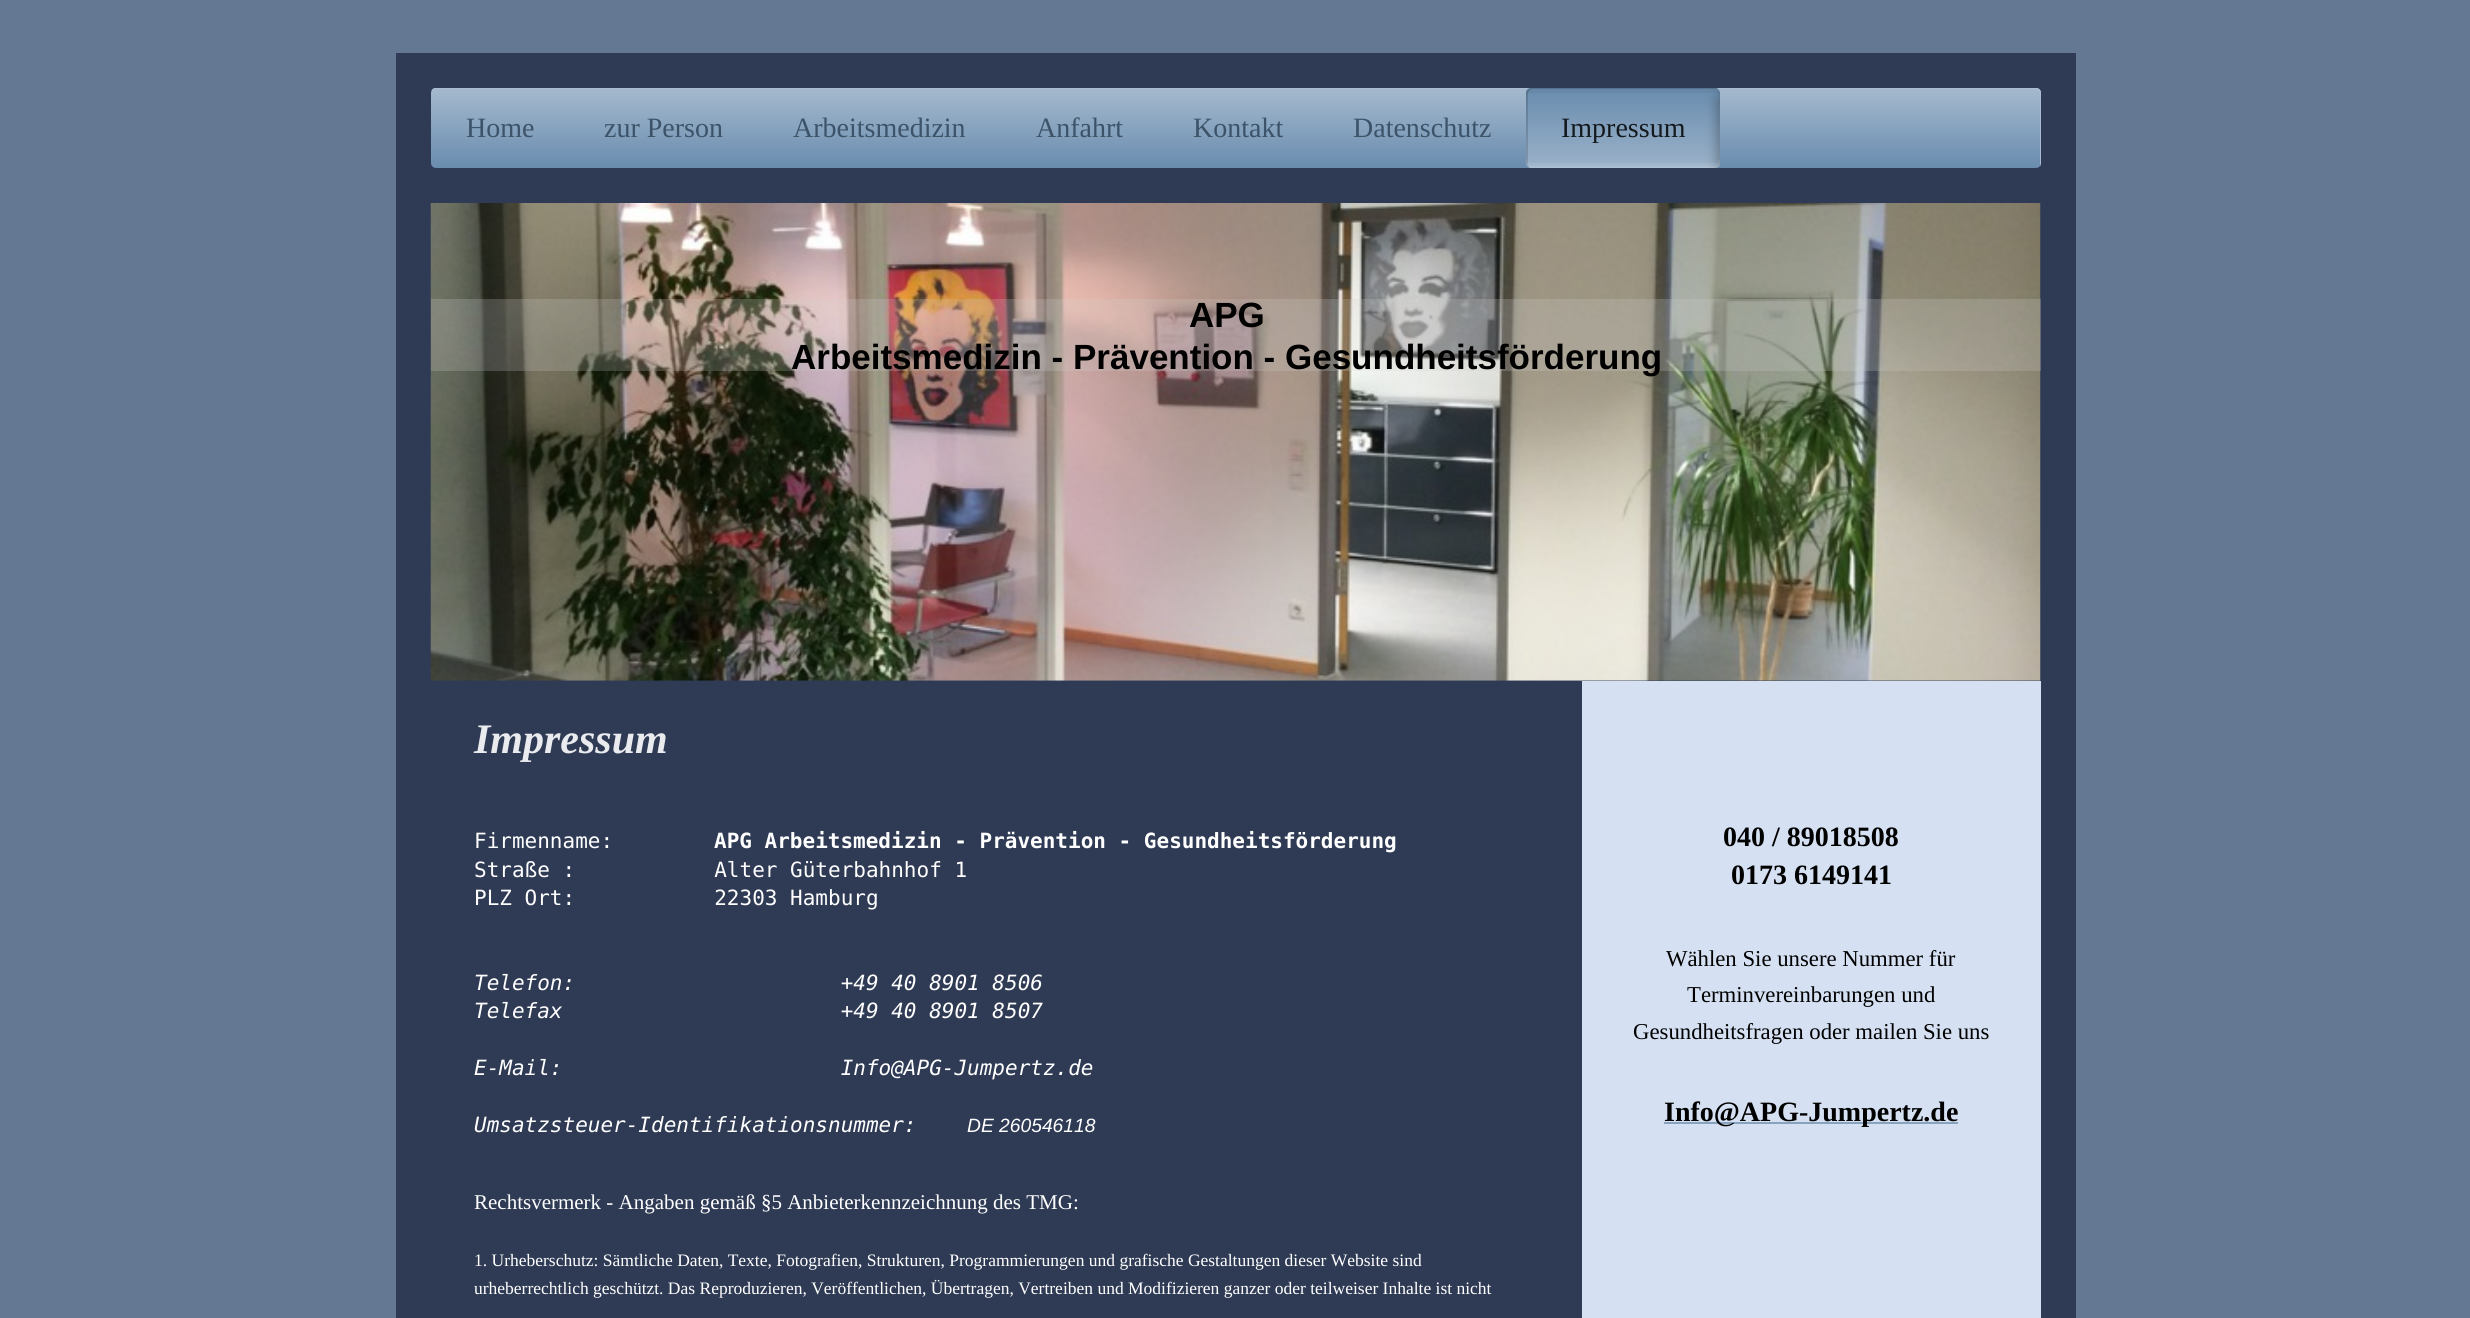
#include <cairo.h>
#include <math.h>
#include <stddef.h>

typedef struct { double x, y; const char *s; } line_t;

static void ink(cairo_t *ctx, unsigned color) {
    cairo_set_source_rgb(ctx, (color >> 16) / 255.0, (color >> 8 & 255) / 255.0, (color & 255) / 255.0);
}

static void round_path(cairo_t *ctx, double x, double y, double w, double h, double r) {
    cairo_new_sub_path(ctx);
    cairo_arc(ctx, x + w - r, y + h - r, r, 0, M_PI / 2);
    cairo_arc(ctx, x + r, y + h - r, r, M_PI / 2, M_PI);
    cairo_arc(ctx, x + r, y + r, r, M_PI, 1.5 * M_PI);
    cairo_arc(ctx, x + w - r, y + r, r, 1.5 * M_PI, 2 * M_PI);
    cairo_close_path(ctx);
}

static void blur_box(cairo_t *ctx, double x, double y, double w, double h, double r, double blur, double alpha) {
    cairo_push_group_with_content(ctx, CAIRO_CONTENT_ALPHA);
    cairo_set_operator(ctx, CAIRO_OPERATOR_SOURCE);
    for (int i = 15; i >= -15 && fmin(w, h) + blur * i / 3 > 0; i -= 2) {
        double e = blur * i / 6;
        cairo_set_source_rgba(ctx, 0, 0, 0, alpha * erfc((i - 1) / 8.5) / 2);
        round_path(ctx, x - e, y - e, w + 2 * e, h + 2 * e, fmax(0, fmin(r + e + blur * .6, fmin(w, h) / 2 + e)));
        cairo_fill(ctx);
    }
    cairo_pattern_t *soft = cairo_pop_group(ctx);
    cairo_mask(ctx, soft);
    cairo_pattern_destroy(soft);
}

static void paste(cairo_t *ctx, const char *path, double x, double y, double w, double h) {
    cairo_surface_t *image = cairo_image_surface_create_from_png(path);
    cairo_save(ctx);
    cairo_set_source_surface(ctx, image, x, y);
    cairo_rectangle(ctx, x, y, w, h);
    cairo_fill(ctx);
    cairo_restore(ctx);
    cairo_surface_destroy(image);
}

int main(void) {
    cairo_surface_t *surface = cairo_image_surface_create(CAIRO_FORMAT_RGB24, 2470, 1318);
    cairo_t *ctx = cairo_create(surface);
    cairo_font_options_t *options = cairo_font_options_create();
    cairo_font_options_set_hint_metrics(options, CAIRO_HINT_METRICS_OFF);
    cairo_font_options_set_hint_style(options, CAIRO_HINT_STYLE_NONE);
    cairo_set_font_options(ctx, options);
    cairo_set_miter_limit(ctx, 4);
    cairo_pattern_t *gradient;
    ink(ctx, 0x647893);
    cairo_paint(ctx);
    ink(ctx, 0x2F3B55);
    cairo_rectangle(ctx, 396, 53, 1680, 1265);
    cairo_fill(ctx);
    gradient = cairo_pattern_create_linear(431, 88, 431, 168);
    cairo_pattern_add_color_stop_rgba(gradient, 0, 0.647, 0.729, 0.808, 1);
    cairo_pattern_add_color_stop_rgba(gradient, 1, 0.412, 0.549, 0.682, 1);
    cairo_set_source(ctx, gradient);
    cairo_pattern_destroy(gradient);
    round_path(ctx, 431, 88, 1610, 80, 5);
    cairo_fill(ctx);
    ink(ctx, 0x84A0BC);
    cairo_new_path(ctx);
    cairo_move_to(ctx, 436, 89);
    cairo_line_to(ctx, 2035, 89);
    cairo_curve_to(ctx, 2038, 89, 2040, 92, 2040, 94);
    cairo_line_to(ctx, 2040, 164);
    cairo_line_to(ctx, 2040, 167);
    cairo_curve_to(ctx, 2040, 166, 2041, 164, 2041, 163);
    cairo_line_to(ctx, 2041, 93);
    cairo_curve_to(ctx, 2041, 90, 2039, 88, 2036, 88);
    cairo_line_to(ctx, 436, 88);
    cairo_curve_to(ctx, 434, 88, 432, 89, 431, 91);
    cairo_curve_to(ctx, 432, 90, 434, 89, 436, 89);
    cairo_close_path(ctx);
    cairo_fill(ctx);
    cairo_set_source_rgba(ctx, 1, 1, 1, 0.3);
    cairo_new_path(ctx);
    cairo_move_to(ctx, 436, 89);
    cairo_line_to(ctx, 2035, 89);
    cairo_curve_to(ctx, 2038, 89, 2040, 92, 2040, 94);
    cairo_line_to(ctx, 2040, 164);
    cairo_line_to(ctx, 2040, 167);
    cairo_curve_to(ctx, 2040, 166, 2041, 164, 2041, 163);
    cairo_line_to(ctx, 2041, 93);
    cairo_curve_to(ctx, 2041, 90, 2039, 88, 2036, 88);
    cairo_line_to(ctx, 436, 88);
    cairo_curve_to(ctx, 434, 88, 432, 89, 431, 91);
    cairo_curve_to(ctx, 432, 90, 434, 89, 436, 89);
    cairo_close_path(ctx);
    cairo_fill(ctx);
    cairo_select_font_face(ctx, "Liberation Serif", CAIRO_FONT_SLANT_NORMAL, CAIRO_FONT_WEIGHT_NORMAL);
    cairo_set_font_size(ctx, 28);
    ink(ctx, 0x3C5369);
    {
        static const line_t items[] = {
            {466, 137, "Home"},
            {604, 137, "zur Person"},
            {793, 137, "Arbeitsmedizin"},
            {1036, 137, "Anfahrt"},
            {1193, 137, "Kontakt"},
            {1353, 137, "Datenschutz"},
        };
        for (size_t i = 0; i < sizeof items / sizeof *items; i++) {
            cairo_move_to(ctx, items[i].x, items[i].y);
            cairo_show_text(ctx, items[i].s);
        }
    }
    gradient = cairo_pattern_create_linear(1526, 168, 1526, 88);
    cairo_pattern_add_color_stop_rgba(gradient, 0, 0.608, 0.698, 0.788, 1);
    cairo_pattern_add_color_stop_rgba(gradient, 1, 0.412, 0.549, 0.682, 1);
    cairo_set_source(ctx, gradient);
    cairo_pattern_destroy(gradient);
    round_path(ctx, 1526, 88, 194, 80, 5);
    cairo_fill(ctx);
    cairo_set_source_rgba(ctx, 0, 0, 0, 0.15);
    cairo_new_path(ctx);
    cairo_move_to(ctx, 1533, 89);
    cairo_line_to(ctx, 1718, 89);
    cairo_curve_to(ctx, 1717, 88, 1716, 88, 1715, 88);
    cairo_line_to(ctx, 1531, 88);
    cairo_curve_to(ctx, 1528, 88, 1526, 90, 1526, 93);
    cairo_line_to(ctx, 1526, 163);
    cairo_curve_to(ctx, 1526, 165, 1527, 167, 1529, 168);
    cairo_line_to(ctx, 1528, 164);
    cairo_line_to(ctx, 1528, 94);
    cairo_curve_to(ctx, 1528, 92, 1530, 89, 1533, 89);
    cairo_close_path(ctx);
    cairo_fill(ctx);
    cairo_set_source_rgba(ctx, 0, 0, 0, 0.04);
    cairo_new_path(ctx);
    cairo_move_to(ctx, 1531, 93);
    cairo_line_to(ctx, 1715, 93);
    cairo_curve_to(ctx, 1718, 93, 1720, 95, 1720, 98);
    cairo_line_to(ctx, 1720, 93);
    cairo_curve_to(ctx, 1720, 90, 1718, 88, 1715, 88);
    cairo_line_to(ctx, 1531, 88);
    cairo_curve_to(ctx, 1528, 88, 1526, 90, 1526, 93);
    cairo_line_to(ctx, 1526, 98);
    cairo_curve_to(ctx, 1526, 95, 1528, 93, 1531, 93);
    cairo_close_path(ctx);
    cairo_fill(ctx);
    cairo_set_source_rgba(ctx, 1, 1, 1, 0.08);
    cairo_new_path(ctx);
    cairo_move_to(ctx, 1526, 158);
    cairo_line_to(ctx, 1526, 163);
    cairo_curve_to(ctx, 1526, 166, 1528, 168, 1531, 168);
    cairo_line_to(ctx, 1715, 168);
    cairo_curve_to(ctx, 1718, 168, 1720, 166, 1720, 163);
    cairo_line_to(ctx, 1720, 158);
    cairo_curve_to(ctx, 1720, 160, 1718, 163, 1715, 163);
    cairo_line_to(ctx, 1531, 163);
    cairo_curve_to(ctx, 1528, 163, 1526, 160, 1526, 158);
    cairo_close_path(ctx);
    cairo_fill(ctx);
    cairo_set_source_rgba(ctx, 1, 1, 1, 0.1);
    cairo_new_path(ctx);
    cairo_move_to(ctx, 1526, 161);
    cairo_line_to(ctx, 1526, 163);
    cairo_curve_to(ctx, 1526, 166, 1528, 168, 1531, 168);
    cairo_line_to(ctx, 1715, 168);
    cairo_curve_to(ctx, 1718, 168, 1720, 166, 1720, 163);
    cairo_line_to(ctx, 1720, 161);
    cairo_curve_to(ctx, 1720, 164, 1718, 166, 1715, 166);
    cairo_line_to(ctx, 1531, 166);
    cairo_curve_to(ctx, 1528, 166, 1526, 164, 1526, 161);
    cairo_close_path(ctx);
    cairo_fill(ctx);
    ink(ctx, 0x14191E);
    cairo_move_to(ctx, 1561, 137);
    cairo_show_text(ctx, "Impressum");
    cairo_save(ctx);
    round_path(ctx, 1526, 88, 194, 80, 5);
    cairo_clip(ctx);
    ink(ctx, 0x000000);
    blur_box(ctx, 1717, 91, 28, 81, 14, 6, 0.3);
    cairo_restore(ctx);
    paste(ctx, "media/1.png", 430, 203, 1611, 478);
    cairo_set_source_rgba(ctx, 0.8, 0.8, 0.8, 0.23);
    cairo_rectangle(ctx, 431, 299, 1610, 72);
    cairo_fill(ctx);
    cairo_select_font_face(ctx, "Liberation Sans", CAIRO_FONT_SLANT_NORMAL, CAIRO_FONT_WEIGHT_BOLD);
    cairo_set_font_size(ctx, 35);
    ink(ctx, 0x000000);
    cairo_move_to(ctx, 1189, 327);
    cairo_show_text(ctx, "APG");
    cairo_move_to(ctx, 791, 369);
    cairo_show_text(ctx, "Arbeitsmedizin - Prävention - Gesundheitsförderung");
    cairo_select_font_face(ctx, "Liberation Serif", CAIRO_FONT_SLANT_ITALIC, CAIRO_FONT_WEIGHT_BOLD);
    cairo_set_font_size(ctx, 42);
    ink(ctx, 0xEAEBEE);
    cairo_move_to(ctx, 474, 753);
    cairo_show_text(ctx, "Impressum");
    cairo_select_font_face(ctx, "DejaVu Sans Mono", CAIRO_FONT_SLANT_NORMAL, CAIRO_FONT_WEIGHT_NORMAL);
    cairo_set_font_size(ctx, 21);
    ink(ctx, 0xFFFFFF);
    cairo_move_to(ctx, 474, 848);
    cairo_show_text(ctx, "Firmenname:");
    cairo_select_font_face(ctx, "DejaVu Sans Mono", CAIRO_FONT_SLANT_NORMAL, CAIRO_FONT_WEIGHT_BOLD);
    cairo_move_to(ctx, 714, 848);
    cairo_show_text(ctx, "APG Arbeitsmedizin - Prävention - Gesundheitsförderung");
    cairo_select_font_face(ctx, "DejaVu Sans Mono", CAIRO_FONT_SLANT_NORMAL, CAIRO_FONT_WEIGHT_NORMAL);
    cairo_move_to(ctx, 474, 877);
    cairo_show_text(ctx, "Straße :           Alter Güterbahnhof 1");
    cairo_move_to(ctx, 474, 905);
    cairo_show_text(ctx, "PLZ Ort:           22303 Hamburg");
    cairo_select_font_face(ctx, "DejaVu Sans Mono", CAIRO_FONT_SLANT_ITALIC, CAIRO_FONT_WEIGHT_NORMAL);
    {
        static const line_t items[] = {
            {474, 990, "Telefon:                     +49 40 8901 8506"},
            {474, 1018, "Telefax                      +49 40 8901 8507"},
            {474, 1075, "E-Mail:                      Info@APG-Jumpertz.de"},
            {474, 1132, "Umsatzsteuer-Identifikationsnummer:"},
        };
        for (size_t i = 0; i < sizeof items / sizeof *items; i++) {
            cairo_move_to(ctx, items[i].x, items[i].y);
            cairo_show_text(ctx, items[i].s);
        }
    }
    cairo_select_font_face(ctx, "Liberation Sans", CAIRO_FONT_SLANT_ITALIC, CAIRO_FONT_WEIGHT_NORMAL);
    cairo_set_font_size(ctx, 19.25);
    cairo_move_to(ctx, 967, 1132);
    cairo_show_text(ctx, "DE 260546118");
    cairo_select_font_face(ctx, "Liberation Serif", CAIRO_FONT_SLANT_NORMAL, CAIRO_FONT_WEIGHT_NORMAL);
    cairo_set_font_size(ctx, 21);
    cairo_move_to(ctx, 474, 1209);
    cairo_show_text(ctx, "Rechtsvermerk - Angaben gemäß §5 Anbieterkennzeichnung des TMG:");
    cairo_set_font_size(ctx, 17.5);
    cairo_move_to(ctx, 474, 1266);
    cairo_show_text(ctx, "1. Urheberschutz: Sämtliche Daten, Texte, Fotografien, Strukturen, Programmierungen und grafische Gestaltungen dieser Website sind");
    cairo_move_to(ctx, 474, 1294);
    cairo_show_text(ctx, "urheberrechtlich geschützt. Das Reproduzieren, Veröffentlichen, Übertragen, Vertreiben und Modifizieren ganzer oder teilweiser Inhalte ist nicht");
    ink(ctx, 0xD5E1F2);
    cairo_rectangle(ctx, 1582, 681, 459, 637);
    cairo_fill(ctx);
    cairo_select_font_face(ctx, "Liberation Serif", CAIRO_FONT_SLANT_NORMAL, CAIRO_FONT_WEIGHT_BOLD);
    cairo_set_font_size(ctx, 28);
    ink(ctx, 0x000000);
    cairo_move_to(ctx, 1723, 846);
    cairo_show_text(ctx, "040 / 89018508");
    cairo_move_to(ctx, 1731, 884);
    cairo_show_text(ctx, "0173 6149141");
    cairo_select_font_face(ctx, "Liberation Serif", CAIRO_FONT_SLANT_NORMAL, CAIRO_FONT_WEIGHT_NORMAL);
    cairo_set_font_size(ctx, 22.75);
    {
        static const line_t items[] = {
            {1666, 966, "Wählen Sie unsere Nummer für"},
            {1687, 1002, "Terminvereinbarungen und"},
            {1633, 1039, "Gesundheitsfragen oder mailen Sie uns"},
        };
        for (size_t i = 0; i < sizeof items / sizeof *items; i++) {
            cairo_move_to(ctx, items[i].x, items[i].y);
            cairo_show_text(ctx, items[i].s);
        }
    }
    ink(ctx, 0x87A3BE);
    cairo_rectangle(ctx, 1664, 1122, 294, 2);
    cairo_fill(ctx);
    cairo_select_font_face(ctx, "Liberation Serif", CAIRO_FONT_SLANT_NORMAL, CAIRO_FONT_WEIGHT_BOLD);
    cairo_set_font_size(ctx, 28);
    ink(ctx, 0x000000);
    cairo_move_to(ctx, 1664, 1121);
    cairo_show_text(ctx, "Info@APG-Jumpertz.de");
    cairo_surface_write_to_png(surface, "image.png");
    cairo_font_options_destroy(options);
    cairo_destroy(ctx);
    cairo_surface_destroy(surface);
    return 0;
}
